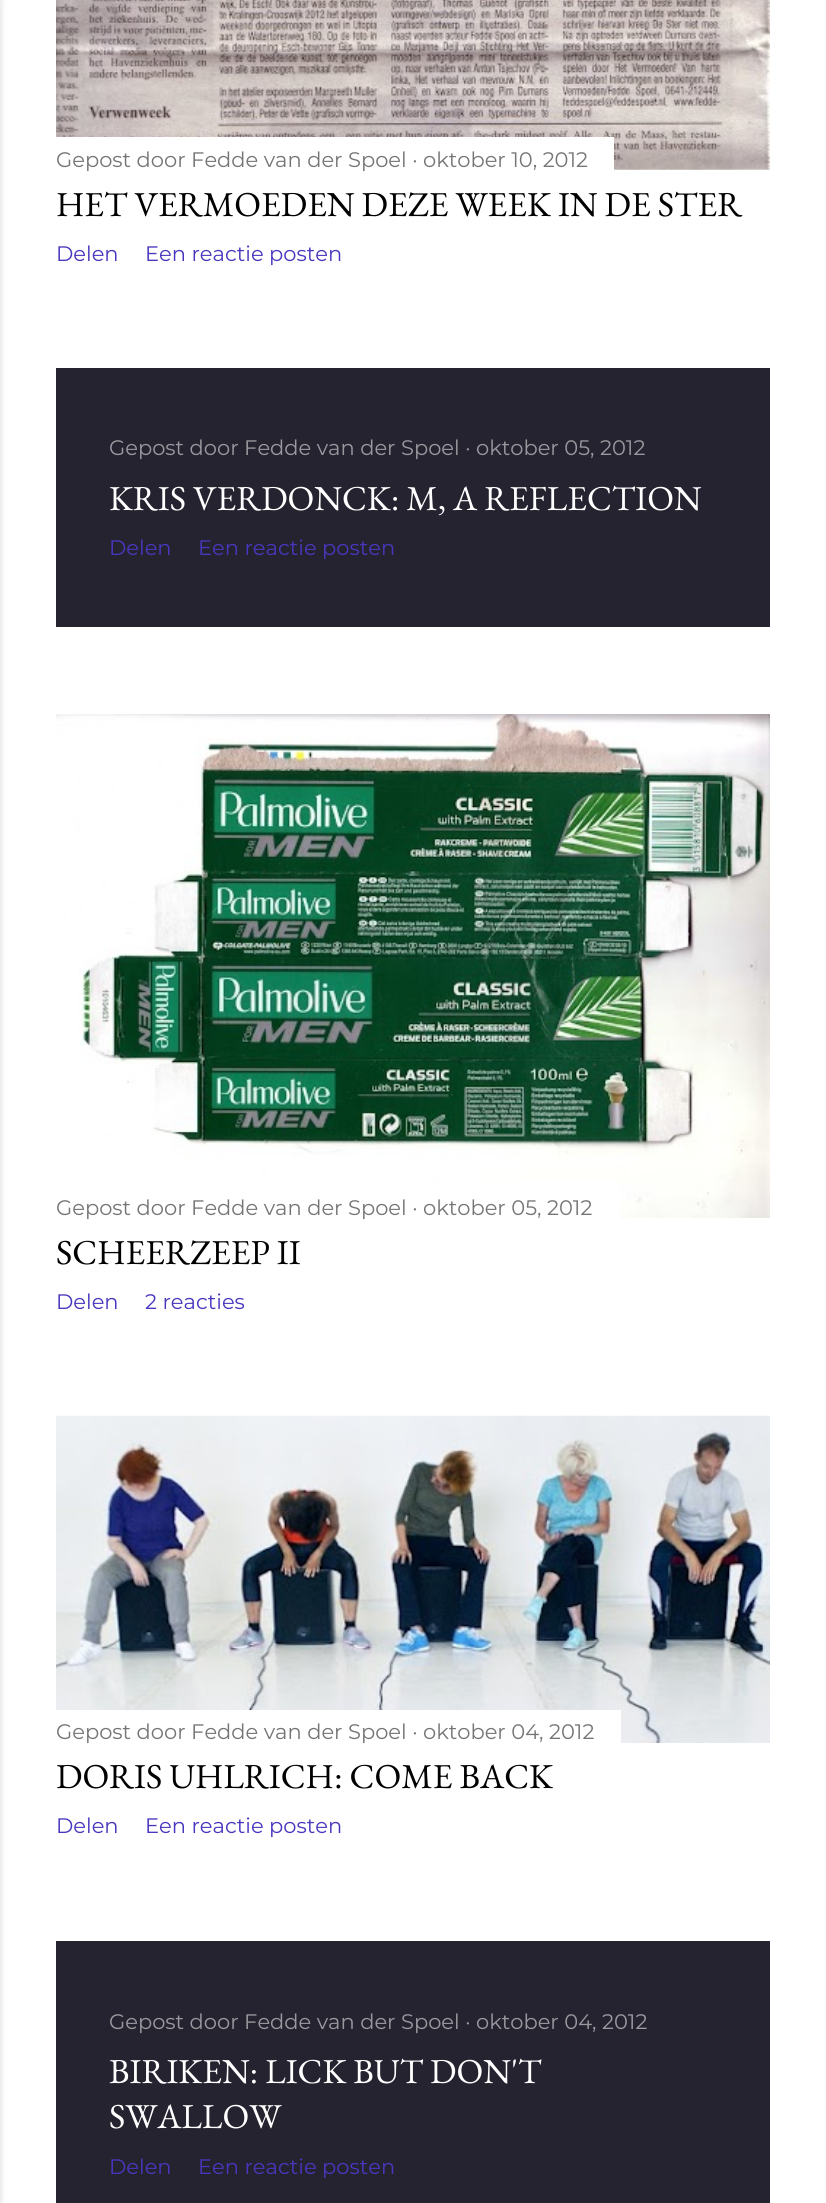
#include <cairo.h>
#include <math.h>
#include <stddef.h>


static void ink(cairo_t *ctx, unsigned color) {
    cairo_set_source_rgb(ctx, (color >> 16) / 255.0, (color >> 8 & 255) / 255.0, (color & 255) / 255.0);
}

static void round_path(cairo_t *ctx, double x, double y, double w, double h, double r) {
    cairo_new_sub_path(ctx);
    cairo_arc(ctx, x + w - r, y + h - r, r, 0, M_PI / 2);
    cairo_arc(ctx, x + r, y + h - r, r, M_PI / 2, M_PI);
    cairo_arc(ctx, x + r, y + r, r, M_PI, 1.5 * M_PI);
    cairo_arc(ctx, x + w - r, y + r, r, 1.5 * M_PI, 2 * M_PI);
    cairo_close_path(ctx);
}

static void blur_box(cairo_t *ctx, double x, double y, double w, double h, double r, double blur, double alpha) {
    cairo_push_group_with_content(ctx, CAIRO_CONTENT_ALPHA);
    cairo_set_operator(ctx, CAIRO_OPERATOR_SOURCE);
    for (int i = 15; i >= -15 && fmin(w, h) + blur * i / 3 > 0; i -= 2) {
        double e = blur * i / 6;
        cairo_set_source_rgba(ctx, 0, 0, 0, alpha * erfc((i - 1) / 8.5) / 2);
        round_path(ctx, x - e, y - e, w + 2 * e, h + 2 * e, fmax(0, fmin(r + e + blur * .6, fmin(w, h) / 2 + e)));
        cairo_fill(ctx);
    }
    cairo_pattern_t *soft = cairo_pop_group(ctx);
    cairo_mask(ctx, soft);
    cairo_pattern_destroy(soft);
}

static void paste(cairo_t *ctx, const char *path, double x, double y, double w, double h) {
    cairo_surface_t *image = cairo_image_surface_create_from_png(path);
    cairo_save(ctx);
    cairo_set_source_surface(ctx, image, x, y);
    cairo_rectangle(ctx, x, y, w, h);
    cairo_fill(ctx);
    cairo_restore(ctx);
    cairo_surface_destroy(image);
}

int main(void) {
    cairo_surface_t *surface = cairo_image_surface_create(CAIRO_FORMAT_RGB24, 826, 2203);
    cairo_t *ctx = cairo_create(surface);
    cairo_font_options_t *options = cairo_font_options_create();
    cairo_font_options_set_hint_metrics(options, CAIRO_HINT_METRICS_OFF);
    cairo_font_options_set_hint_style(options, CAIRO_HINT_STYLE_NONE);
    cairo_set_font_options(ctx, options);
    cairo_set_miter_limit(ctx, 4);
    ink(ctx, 0xFFFFFF);
    cairo_paint(ctx);
    ink(ctx, 0x000000);
    blur_box(ctx, -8, 0, 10, 2203, 0, 2.5, 0.1);
    paste(ctx, "media/1.png", 56, 0, 714, 170);
    ink(ctx, 0xFFFFFF);
    cairo_rectangle(ctx, 56, 137, 558, 33);
    cairo_fill(ctx);
    cairo_select_font_face(ctx, "Montserrat", CAIRO_FONT_SLANT_NORMAL, CAIRO_FONT_WEIGHT_NORMAL);
    cairo_set_font_size(ctx, 21);
    ink(ctx, 0x757575);
    cairo_move_to(ctx, 56, 167);
    cairo_show_text(ctx, "Gepost door Fedde van der Spoel · oktober 10, 2012");
    cairo_select_font_face(ctx, "EB Garamond", CAIRO_FONT_SLANT_NORMAL, CAIRO_FONT_WEIGHT_NORMAL);
    cairo_set_font_size(ctx, 35);
    ink(ctx, 0x000000);
    cairo_move_to(ctx, 56, 216);
    cairo_show_text(ctx, "HET VERMOEDEN DEZE WEEK IN DE STER");
    cairo_select_font_face(ctx, "Montserrat", CAIRO_FONT_SLANT_NORMAL, CAIRO_FONT_WEIGHT_NORMAL);
    cairo_set_font_size(ctx, 21);
    ink(ctx, 0x4737BE);
    cairo_move_to(ctx, 56, 261);
    cairo_show_text(ctx, "Delen");
    cairo_move_to(ctx, 145, 261);
    cairo_show_text(ctx, "Een reactie posten");
    ink(ctx, 0x25232F);
    cairo_rectangle(ctx, 56, 368, 714, 259);
    cairo_fill(ctx);
    ink(ctx, 0x9A999F);
    cairo_move_to(ctx, 109, 455);
    cairo_show_text(ctx, "Gepost door Fedde van der Spoel · oktober 05, 2012");
    cairo_select_font_face(ctx, "EB Garamond", CAIRO_FONT_SLANT_NORMAL, CAIRO_FONT_WEIGHT_NORMAL);
    cairo_set_font_size(ctx, 35);
    ink(ctx, 0xFFFFFF);
    cairo_move_to(ctx, 109, 510);
    cairo_show_text(ctx, "KRIS VERDONCK: M, A REFLECTION");
    cairo_select_font_face(ctx, "Montserrat", CAIRO_FONT_SLANT_NORMAL, CAIRO_FONT_WEIGHT_NORMAL);
    cairo_set_font_size(ctx, 21);
    ink(ctx, 0x4737BE);
    cairo_move_to(ctx, 109, 555);
    cairo_show_text(ctx, "Delen");
    cairo_move_to(ctx, 198, 555);
    cairo_show_text(ctx, "Een reactie posten");
    paste(ctx, "media/2.png", 56, 714, 714, 504);
    ink(ctx, 0xFFFFFF);
    cairo_rectangle(ctx, 378, 1185, 242, 33);
    cairo_fill(ctx);
    ink(ctx, 0x757575);
    cairo_move_to(ctx, 56, 1215);
    cairo_show_text(ctx, "Gepost door Fedde van der Spoel · oktober 05, 2012");
    cairo_select_font_face(ctx, "EB Garamond", CAIRO_FONT_SLANT_NORMAL, CAIRO_FONT_WEIGHT_NORMAL);
    cairo_set_font_size(ctx, 35);
    ink(ctx, 0x000000);
    cairo_move_to(ctx, 56, 1264);
    cairo_show_text(ctx, "SCHEERZEEP II");
    cairo_select_font_face(ctx, "Montserrat", CAIRO_FONT_SLANT_NORMAL, CAIRO_FONT_WEIGHT_NORMAL);
    cairo_set_font_size(ctx, 21);
    ink(ctx, 0x4737BE);
    cairo_move_to(ctx, 56, 1309);
    cairo_show_text(ctx, "Delen");
    cairo_move_to(ctx, 145, 1309);
    cairo_show_text(ctx, "2 reacties");
    paste(ctx, "media/3.png", 56, 1415, 714, 328);
    ink(ctx, 0xFFFFFF);
    cairo_rectangle(ctx, 56, 1710, 565, 33);
    cairo_fill(ctx);
    ink(ctx, 0x757575);
    cairo_move_to(ctx, 56, 1739);
    cairo_show_text(ctx, "Gepost door Fedde van der Spoel · oktober 04, 2012");
    cairo_select_font_face(ctx, "EB Garamond", CAIRO_FONT_SLANT_NORMAL, CAIRO_FONT_WEIGHT_NORMAL);
    cairo_set_font_size(ctx, 35);
    ink(ctx, 0x000000);
    cairo_move_to(ctx, 56, 1788);
    cairo_show_text(ctx, "DORIS UHLRICH: COME BACK");
    cairo_select_font_face(ctx, "Montserrat", CAIRO_FONT_SLANT_NORMAL, CAIRO_FONT_WEIGHT_NORMAL);
    cairo_set_font_size(ctx, 21);
    ink(ctx, 0x4737BE);
    cairo_move_to(ctx, 56, 1833);
    cairo_show_text(ctx, "Delen");
    cairo_move_to(ctx, 145, 1833);
    cairo_show_text(ctx, "Een reactie posten");
    ink(ctx, 0x25232F);
    cairo_rectangle(ctx, 56, 1941, 714, 262);
    cairo_fill(ctx);
    ink(ctx, 0x9A999F);
    cairo_move_to(ctx, 109, 2029);
    cairo_show_text(ctx, "Gepost door Fedde van der Spoel · oktober 04, 2012");
    cairo_select_font_face(ctx, "EB Garamond", CAIRO_FONT_SLANT_NORMAL, CAIRO_FONT_WEIGHT_NORMAL);
    cairo_set_font_size(ctx, 35);
    ink(ctx, 0xFFFFFF);
    cairo_move_to(ctx, 109, 2083);
    cairo_show_text(ctx, "BIRIKEN: LICK BUT DON'T");
    cairo_move_to(ctx, 109, 2128);
    cairo_show_text(ctx, "SWALLOW");
    cairo_select_font_face(ctx, "Montserrat", CAIRO_FONT_SLANT_NORMAL, CAIRO_FONT_WEIGHT_NORMAL);
    cairo_set_font_size(ctx, 21);
    ink(ctx, 0x4737BE);
    cairo_move_to(ctx, 109, 2174);
    cairo_show_text(ctx, "Delen");
    cairo_move_to(ctx, 198, 2174);
    cairo_show_text(ctx, "Een reactie posten");
    cairo_surface_write_to_png(surface, "image.png");
    cairo_font_options_destroy(options);
    cairo_destroy(ctx);
    cairo_surface_destroy(surface);
    return 0;
}
